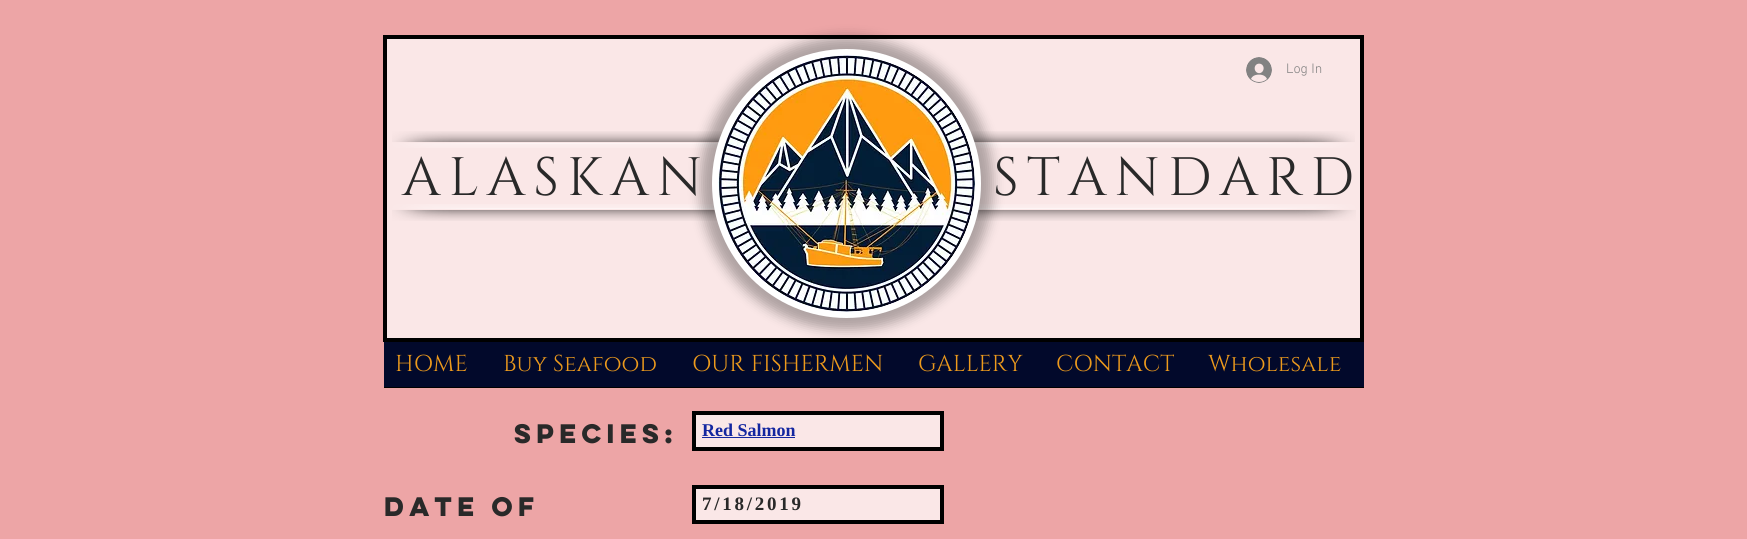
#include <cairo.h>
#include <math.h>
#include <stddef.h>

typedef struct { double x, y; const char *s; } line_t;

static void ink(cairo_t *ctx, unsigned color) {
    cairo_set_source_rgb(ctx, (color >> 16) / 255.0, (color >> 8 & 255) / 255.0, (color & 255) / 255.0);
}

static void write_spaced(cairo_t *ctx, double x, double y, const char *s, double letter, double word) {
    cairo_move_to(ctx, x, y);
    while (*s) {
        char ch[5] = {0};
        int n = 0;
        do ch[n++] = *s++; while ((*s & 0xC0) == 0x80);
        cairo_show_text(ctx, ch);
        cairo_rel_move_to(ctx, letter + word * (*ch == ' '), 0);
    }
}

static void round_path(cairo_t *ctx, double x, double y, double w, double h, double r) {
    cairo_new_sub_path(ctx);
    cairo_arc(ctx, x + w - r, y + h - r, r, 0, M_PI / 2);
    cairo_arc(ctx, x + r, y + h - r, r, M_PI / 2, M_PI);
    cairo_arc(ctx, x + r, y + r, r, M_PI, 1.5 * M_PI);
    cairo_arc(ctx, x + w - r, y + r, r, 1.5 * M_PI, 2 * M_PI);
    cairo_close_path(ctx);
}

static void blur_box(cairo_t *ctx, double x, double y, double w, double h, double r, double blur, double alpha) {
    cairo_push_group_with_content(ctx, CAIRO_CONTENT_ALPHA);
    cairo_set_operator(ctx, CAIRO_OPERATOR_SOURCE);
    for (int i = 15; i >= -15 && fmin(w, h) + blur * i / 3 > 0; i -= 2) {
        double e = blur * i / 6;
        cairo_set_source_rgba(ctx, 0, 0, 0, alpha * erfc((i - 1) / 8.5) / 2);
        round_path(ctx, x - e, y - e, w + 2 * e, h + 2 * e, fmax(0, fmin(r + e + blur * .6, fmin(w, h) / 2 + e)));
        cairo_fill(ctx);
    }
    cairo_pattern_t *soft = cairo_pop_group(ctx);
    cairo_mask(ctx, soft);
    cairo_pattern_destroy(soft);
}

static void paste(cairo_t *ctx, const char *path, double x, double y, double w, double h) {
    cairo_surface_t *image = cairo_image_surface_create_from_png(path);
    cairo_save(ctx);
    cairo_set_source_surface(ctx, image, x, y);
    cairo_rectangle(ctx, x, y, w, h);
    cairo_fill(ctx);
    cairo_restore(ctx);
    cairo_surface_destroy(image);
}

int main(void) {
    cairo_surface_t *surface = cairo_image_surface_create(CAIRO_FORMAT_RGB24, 1747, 539);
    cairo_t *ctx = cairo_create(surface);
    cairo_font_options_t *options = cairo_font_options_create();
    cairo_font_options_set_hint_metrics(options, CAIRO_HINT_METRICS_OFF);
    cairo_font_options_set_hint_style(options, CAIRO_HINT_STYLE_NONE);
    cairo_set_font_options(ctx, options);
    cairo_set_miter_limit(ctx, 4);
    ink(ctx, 0xEDA5A6);
    cairo_paint(ctx);
    ink(ctx, 0xFAE7E7);
    cairo_rectangle(ctx, 385, 37, 977, 303);
    cairo_fill_preserve(ctx);
    ink(ctx, 0x000000);
    cairo_set_line_width(ctx, 4);
    cairo_stroke(ctx);
    paste(ctx, "media/4.png", 489, 131, 769, 17);
    paste(ctx, "media/7.png", 489, 204, 770, 17);
    ink(ctx, 0x000000);
    blur_box(ctx, 700, 37, 293, 293, 146.5, 6, 0.3);
    ink(ctx, 0xFFFFFF);
    cairo_arc(ctx, 846.5, 183.5, 131.5, 0, 2 * M_PI);
    cairo_fill_preserve(ctx);
    cairo_set_line_width(ctx, 6);
    cairo_stroke(ctx);
    paste(ctx, "media/1.png", 718, 55, 257, 257);
    paste(ctx, "media/2.png", 1246, 57, 26, 26);
    cairo_select_font_face(ctx, "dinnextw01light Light", CAIRO_FONT_SLANT_NORMAL, CAIRO_FONT_WEIGHT_NORMAL);
    cairo_set_font_size(ctx, 14);
    ink(ctx, 0x828282);
    cairo_move_to(ctx, 1286, 73);
    cairo_show_text(ctx, "Log In");
    paste(ctx, "media/3.png", 392, 131, 97, 17);
    paste(ctx, "media/5.png", 1258, 131, 97, 17);
    cairo_select_font_face(ctx, "Cinzel", CAIRO_FONT_SLANT_NORMAL, CAIRO_FONT_WEIGHT_NORMAL);
    cairo_set_font_size(ctx, 54);
    ink(ctx, 0x292929);
    write_spaced(ctx, 402, 195, "ALASKAN", 8, 0);
    write_spaced(ctx, 993, 195, "STANDARD", 8, 0);
    paste(ctx, "media/6.png", 392, 204, 97, 17);
    paste(ctx, "media/8.png", 1259, 204, 97, 17);
    ink(ctx, 0x02092B);
    cairo_rectangle(ctx, 384, 342, 980, 45);
    cairo_fill(ctx);
    ink(ctx, 0x000000);
    cairo_rectangle(ctx, 384, 387, 980, 1);
    cairo_fill(ctx);
    cairo_set_font_size(ctx, 23);
    ink(ctx, 0xED9A1C);
    {
        static const line_t items[] = {
            {395, 371, "HOME"},
            {503, 371, "Buy Seafood"},
            {692, 371, "OUR FISHERMEN"},
            {918, 371, "GALLERY"},
            {1056, 371, "CONTACT"},
            {1208, 371, "Wholesale"},
        };
        for (size_t i = 0; i < sizeof items / sizeof *items; i++) {
            cairo_move_to(ctx, items[i].x, items[i].y);
            cairo_show_text(ctx, items[i].s);
        }
    }
    cairo_select_font_face(ctx, "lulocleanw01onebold", CAIRO_FONT_SLANT_NORMAL, CAIRO_FONT_WEIGHT_BOLD);
    cairo_set_font_size(ctx, 24);
    ink(ctx, 0x292929);
    cairo_move_to(ctx, 514, 443);
    cairo_show_text(ctx, "Species:");
    ink(ctx, 0xFAE7E7);
    cairo_rectangle(ctx, 694, 413, 248, 36);
    cairo_fill_preserve(ctx);
    ink(ctx, 0x000000);
    cairo_set_line_width(ctx, 4);
    cairo_stroke(ctx);
    cairo_select_font_face(ctx, "Liberation Serif", CAIRO_FONT_SLANT_NORMAL, CAIRO_FONT_WEIGHT_BOLD);
    cairo_set_font_size(ctx, 18);
    ink(ctx, 0x1427A0);
    cairo_move_to(ctx, 702, 436);
    cairo_show_text(ctx, "Red Salmon");
    cairo_rectangle(ctx, 702, 437, 93, 1);
    cairo_fill(ctx);
    cairo_select_font_face(ctx, "lulocleanw01onebold", CAIRO_FONT_SLANT_NORMAL, CAIRO_FONT_WEIGHT_BOLD);
    cairo_set_font_size(ctx, 24);
    ink(ctx, 0x292929);
    cairo_move_to(ctx, 384, 516);
    cairo_show_text(ctx, "Date of");
    ink(ctx, 0xFAE7E7);
    cairo_rectangle(ctx, 694, 487, 248, 35);
    cairo_fill_preserve(ctx);
    ink(ctx, 0x000000);
    cairo_stroke(ctx);
    cairo_select_font_face(ctx, "Liberation Serif", CAIRO_FONT_SLANT_NORMAL, CAIRO_FONT_WEIGHT_BOLD);
    cairo_set_font_size(ctx, 19);
    ink(ctx, 0x292929);
    write_spaced(ctx, 702, 510, "7/18/2019", 2.75, 0);
    cairo_surface_write_to_png(surface, "image.png");
    cairo_font_options_destroy(options);
    cairo_destroy(ctx);
    cairo_surface_destroy(surface);
    return 0;
}
